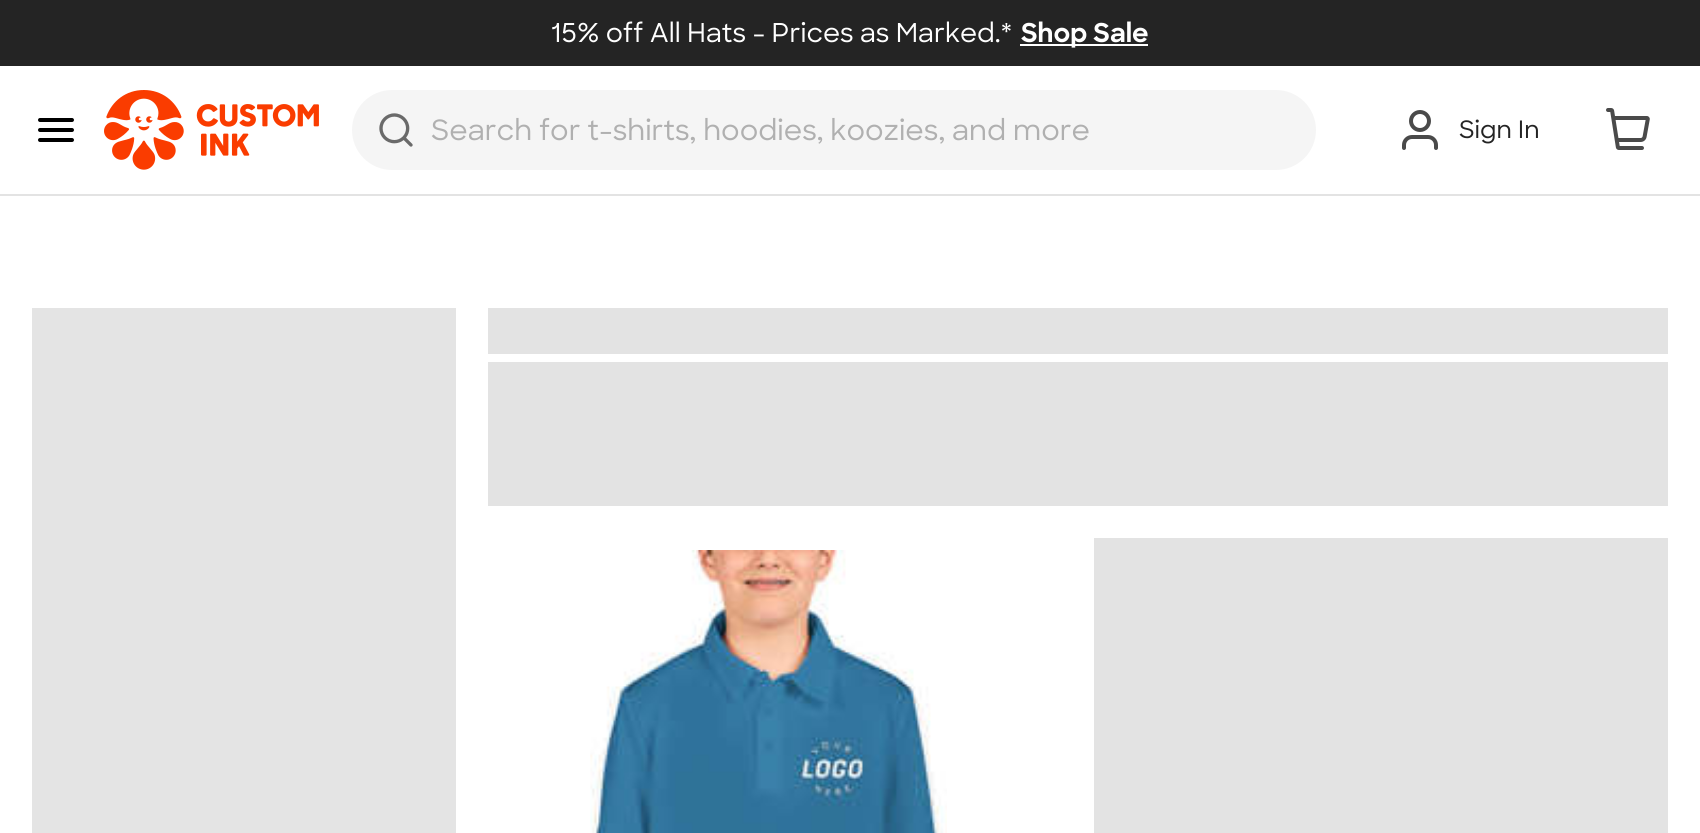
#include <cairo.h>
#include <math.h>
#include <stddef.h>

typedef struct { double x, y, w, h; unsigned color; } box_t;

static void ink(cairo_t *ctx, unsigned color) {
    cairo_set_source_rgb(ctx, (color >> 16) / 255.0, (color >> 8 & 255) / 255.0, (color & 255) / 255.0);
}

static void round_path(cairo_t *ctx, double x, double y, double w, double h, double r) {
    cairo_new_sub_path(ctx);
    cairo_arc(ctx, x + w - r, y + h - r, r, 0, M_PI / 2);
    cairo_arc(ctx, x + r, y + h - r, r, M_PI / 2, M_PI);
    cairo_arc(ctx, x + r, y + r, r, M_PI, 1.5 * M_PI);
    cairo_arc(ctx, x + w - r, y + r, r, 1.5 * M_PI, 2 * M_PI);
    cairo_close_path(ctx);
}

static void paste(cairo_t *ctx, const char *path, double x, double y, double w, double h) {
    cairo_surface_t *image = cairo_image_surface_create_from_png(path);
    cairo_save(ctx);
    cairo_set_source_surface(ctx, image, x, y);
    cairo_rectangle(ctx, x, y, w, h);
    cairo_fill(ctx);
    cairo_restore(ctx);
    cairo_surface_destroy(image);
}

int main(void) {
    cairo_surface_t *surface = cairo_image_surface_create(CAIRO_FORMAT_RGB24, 1700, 833);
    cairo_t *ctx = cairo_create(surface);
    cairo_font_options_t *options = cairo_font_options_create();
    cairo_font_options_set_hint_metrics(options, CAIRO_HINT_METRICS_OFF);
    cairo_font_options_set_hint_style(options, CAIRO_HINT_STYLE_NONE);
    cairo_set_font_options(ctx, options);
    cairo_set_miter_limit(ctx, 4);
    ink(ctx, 0xFFFFFF);
    cairo_paint(ctx);
    ink(ctx, 0x242424);
    cairo_rectangle(ctx, 0, 0, 1700, 66);
    cairo_fill(ctx);
    cairo_select_font_face(ctx, "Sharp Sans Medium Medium", CAIRO_FONT_SLANT_NORMAL, CAIRO_FONT_WEIGHT_NORMAL);
    cairo_set_font_size(ctx, 26);
    ink(ctx, 0xFFFFFF);
    cairo_move_to(ctx, 551, 42);
    cairo_show_text(ctx, "15% off All Hats - Prices as Marked.*");
    cairo_rectangle(ctx, 1020, 44, 128, 2);
    cairo_fill(ctx);
    cairo_select_font_face(ctx, "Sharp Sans", CAIRO_FONT_SLANT_NORMAL, CAIRO_FONT_WEIGHT_BOLD);
    cairo_move_to(ctx, 1021, 42);
    cairo_show_text(ctx, "Shop Sale");
    ink(ctx, 0xE3E3E3);
    cairo_rectangle(ctx, 0, 194, 1700, 2);
    cairo_fill(ctx);
    ink(ctx, 0x000000);
    round_path(ctx, 38, 118, 36, 4, 2);
    cairo_fill(ctx);
    round_path(ctx, 38, 128, 36, 4, 2);
    cairo_fill(ctx);
    round_path(ctx, 38, 138, 36, 4, 2);
    cairo_fill(ctx);
    paste(ctx, "media/1.png", 104, 90, 215, 80);
    ink(ctx, 0xF5F5F5);
    round_path(ctx, 352, 90, 964, 80, 40);
    cairo_fill(ctx);
    paste(ctx, "media/2.png", 379, 113, 34, 34);
    cairo_select_font_face(ctx, "Sharp Sans Medium Medium", CAIRO_FONT_SLANT_NORMAL, CAIRO_FONT_WEIGHT_NORMAL);
    cairo_set_font_size(ctx, 28);
    ink(ctx, 0xB0B0B0);
    cairo_move_to(ctx, 431, 140);
    cairo_show_text(ctx, "Search for t-shirts, hoodies, koozies, and more");
    paste(ctx, "media/3.png", 1402, 110, 36, 40);
    cairo_set_font_size(ctx, 24);
    ink(ctx, 0x242424);
    cairo_move_to(ctx, 1459, 138);
    cairo_show_text(ctx, "Sign In");
    paste(ctx, "media/4.png", 1606, 108, 44, 42);
    {
        static const box_t items[] = {
            {32, 308, 424, 525, 0xE4E4E4},
            {488, 308, 1180, 46, 0xE3E3E3},
            {488, 362, 1180, 144, 0xE3E3E3},
        };
        for (size_t i = 0; i < sizeof items / sizeof *items; i++) {
            ink(ctx, items[i].color);
            cairo_rectangle(ctx, items[i].x, items[i].y, items[i].w, items[i].h);
            cairo_fill(ctx);
        }
    }
    paste(ctx, "media/5.png", 590, 550, 357, 283);
    cairo_rectangle(ctx, 1094, 538, 574, 295);
    cairo_fill(ctx);
    cairo_surface_write_to_png(surface, "image.png");
    cairo_font_options_destroy(options);
    cairo_destroy(ctx);
    cairo_surface_destroy(surface);
    return 0;
}
